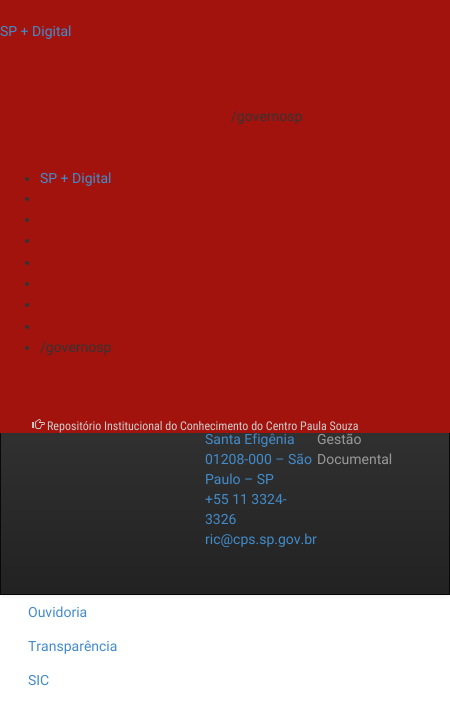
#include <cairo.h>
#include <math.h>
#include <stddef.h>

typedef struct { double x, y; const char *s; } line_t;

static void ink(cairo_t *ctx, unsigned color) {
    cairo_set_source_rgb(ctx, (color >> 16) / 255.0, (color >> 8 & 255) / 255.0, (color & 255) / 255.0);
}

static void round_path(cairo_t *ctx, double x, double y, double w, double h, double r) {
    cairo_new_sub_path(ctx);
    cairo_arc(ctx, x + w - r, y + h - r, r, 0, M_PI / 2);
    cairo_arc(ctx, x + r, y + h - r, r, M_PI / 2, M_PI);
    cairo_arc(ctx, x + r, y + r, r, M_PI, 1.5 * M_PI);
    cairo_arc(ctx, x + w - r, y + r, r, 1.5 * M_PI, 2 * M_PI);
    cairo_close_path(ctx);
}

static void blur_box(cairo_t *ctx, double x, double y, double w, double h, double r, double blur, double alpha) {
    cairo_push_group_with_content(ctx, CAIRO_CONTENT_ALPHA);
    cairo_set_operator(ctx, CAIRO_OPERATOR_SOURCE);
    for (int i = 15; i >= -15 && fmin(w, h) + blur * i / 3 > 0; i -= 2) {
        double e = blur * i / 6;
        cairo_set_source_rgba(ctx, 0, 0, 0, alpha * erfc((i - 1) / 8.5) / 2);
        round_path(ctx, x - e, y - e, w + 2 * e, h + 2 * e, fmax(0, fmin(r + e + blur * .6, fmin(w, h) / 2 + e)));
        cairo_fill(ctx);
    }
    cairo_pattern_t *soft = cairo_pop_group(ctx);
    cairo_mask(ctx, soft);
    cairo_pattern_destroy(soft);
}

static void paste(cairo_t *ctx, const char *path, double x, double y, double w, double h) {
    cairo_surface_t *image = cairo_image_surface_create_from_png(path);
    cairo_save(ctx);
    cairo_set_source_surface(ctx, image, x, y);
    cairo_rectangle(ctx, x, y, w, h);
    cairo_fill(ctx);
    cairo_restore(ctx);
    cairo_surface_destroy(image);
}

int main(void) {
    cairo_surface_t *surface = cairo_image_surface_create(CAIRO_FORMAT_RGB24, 450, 718);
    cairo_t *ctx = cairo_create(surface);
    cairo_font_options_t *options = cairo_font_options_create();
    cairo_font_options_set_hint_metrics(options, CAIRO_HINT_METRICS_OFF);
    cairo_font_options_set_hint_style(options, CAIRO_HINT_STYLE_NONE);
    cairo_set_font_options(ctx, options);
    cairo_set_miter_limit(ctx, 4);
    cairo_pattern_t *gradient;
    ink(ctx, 0xFFFFFF);
    cairo_paint(ctx);
    ink(ctx, 0x000000);
    blur_box(ctx, 0, 304, 450, 292, 4, 2.5, 0.07);
    gradient = cairo_pattern_create_linear(225, 304, 225, 594);
    cairo_pattern_add_color_stop_rgba(gradient, 0, 0.235, 0.235, 0.235, 1);
    cairo_pattern_add_color_stop_rgba(gradient, 1, 0.133, 0.133, 0.133, 1);
    cairo_set_source(ctx, gradient);
    cairo_pattern_destroy(gradient);
    cairo_rectangle(ctx, 1, 433, 448, 161);
    cairo_fill(ctx);
    cairo_rectangle(ctx, 0.5, 303.5, 449, 291);
    ink(ctx, 0x080808);
    cairo_set_line_width(ctx, 1);
    cairo_stroke(ctx);
    ink(ctx, 0xA3130D);
    cairo_rectangle(ctx, 0, 0, 450, 433);
    cairo_fill(ctx);
    cairo_select_font_face(ctx, "Roboto", CAIRO_FONT_SLANT_NORMAL, CAIRO_FONT_WEIGHT_NORMAL);
    cairo_set_font_size(ctx, 14);
    ink(ctx, 0x428BCA);
    cairo_move_to(ctx, 0, 36);
    cairo_show_text(ctx, "SP + Digital");
    ink(ctx, 0x333333);
    cairo_move_to(ctx, 231, 121);
    cairo_show_text(ctx, "/governosp");
    cairo_new_path(ctx);
    cairo_arc(ctx, 27, 179, 2, 0, 2 * M_PI);
    cairo_fill(ctx);
    ink(ctx, 0x428BCA);
    cairo_move_to(ctx, 40, 183);
    cairo_show_text(ctx, "SP + Digital");
    ink(ctx, 0x333333);
    cairo_new_path(ctx);
    cairo_arc(ctx, 27, 199, 2, 0, 2 * M_PI);
    cairo_fill(ctx);
    cairo_arc(ctx, 27, 220, 2, 0, 2 * M_PI);
    cairo_fill(ctx);
    cairo_arc(ctx, 27, 241, 2, 0, 2 * M_PI);
    cairo_fill(ctx);
    cairo_arc(ctx, 27, 263, 2, 0, 2 * M_PI);
    cairo_fill(ctx);
    cairo_arc(ctx, 27, 284, 2, 0, 2 * M_PI);
    cairo_fill(ctx);
    cairo_arc(ctx, 27, 305, 2, 0, 2 * M_PI);
    cairo_fill(ctx);
    cairo_arc(ctx, 27, 327, 2, 0, 2 * M_PI);
    cairo_fill(ctx);
    cairo_arc(ctx, 27, 348, 2, 0, 2 * M_PI);
    cairo_fill(ctx);
    cairo_move_to(ctx, 40, 352);
    cairo_show_text(ctx, "/governosp");
    paste(ctx, "media/1.png", 32, 418, 13, 11);
    cairo_select_font_face(ctx, "Roboto Condensed", CAIRO_FONT_SLANT_NORMAL, CAIRO_FONT_WEIGHT_NORMAL);
    cairo_set_font_size(ctx, 12);
    ink(ctx, 0xCCCCCC);
    cairo_move_to(ctx, 47, 430);
    cairo_show_text(ctx, "Repositório Institucional do Conhecimento do Centro Paula Souza");
    cairo_select_font_face(ctx, "Roboto", CAIRO_FONT_SLANT_NORMAL, CAIRO_FONT_WEIGHT_NORMAL);
    cairo_set_font_size(ctx, 14);
    ink(ctx, 0x428BCA);
    cairo_move_to(ctx, 205, 444);
    cairo_show_text(ctx, "Santa Efigênia");
    ink(ctx, 0x999999);
    cairo_move_to(ctx, 317, 444);
    cairo_show_text(ctx, "Gestão");
    cairo_move_to(ctx, 317, 464);
    cairo_show_text(ctx, "Documental");
    ink(ctx, 0x428BCA);
    {
        static const line_t items[] = {
            {205, 464, "01208-000 – São"},
            {205, 484, "Paulo – SP"},
            {205, 504, "+55 11 3324-"},
            {205, 524, "3326"},
            {205, 544, "ric@cps.sp.gov.br"},
            {28, 617, "Ouvidoria"},
            {28, 651, "Transparência"},
            {28, 685, "SIC"},
        };
        for (size_t i = 0; i < sizeof items / sizeof *items; i++) {
            cairo_move_to(ctx, items[i].x, items[i].y);
            cairo_show_text(ctx, items[i].s);
        }
    }
    cairo_surface_write_to_png(surface, "image.png");
    cairo_font_options_destroy(options);
    cairo_destroy(ctx);
    cairo_surface_destroy(surface);
    return 0;
}
